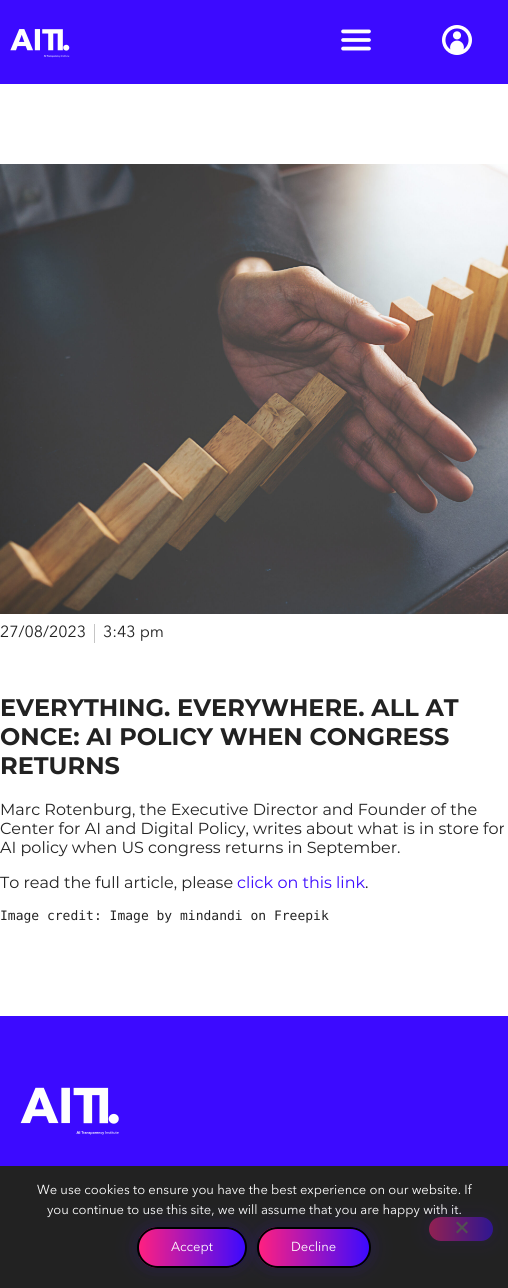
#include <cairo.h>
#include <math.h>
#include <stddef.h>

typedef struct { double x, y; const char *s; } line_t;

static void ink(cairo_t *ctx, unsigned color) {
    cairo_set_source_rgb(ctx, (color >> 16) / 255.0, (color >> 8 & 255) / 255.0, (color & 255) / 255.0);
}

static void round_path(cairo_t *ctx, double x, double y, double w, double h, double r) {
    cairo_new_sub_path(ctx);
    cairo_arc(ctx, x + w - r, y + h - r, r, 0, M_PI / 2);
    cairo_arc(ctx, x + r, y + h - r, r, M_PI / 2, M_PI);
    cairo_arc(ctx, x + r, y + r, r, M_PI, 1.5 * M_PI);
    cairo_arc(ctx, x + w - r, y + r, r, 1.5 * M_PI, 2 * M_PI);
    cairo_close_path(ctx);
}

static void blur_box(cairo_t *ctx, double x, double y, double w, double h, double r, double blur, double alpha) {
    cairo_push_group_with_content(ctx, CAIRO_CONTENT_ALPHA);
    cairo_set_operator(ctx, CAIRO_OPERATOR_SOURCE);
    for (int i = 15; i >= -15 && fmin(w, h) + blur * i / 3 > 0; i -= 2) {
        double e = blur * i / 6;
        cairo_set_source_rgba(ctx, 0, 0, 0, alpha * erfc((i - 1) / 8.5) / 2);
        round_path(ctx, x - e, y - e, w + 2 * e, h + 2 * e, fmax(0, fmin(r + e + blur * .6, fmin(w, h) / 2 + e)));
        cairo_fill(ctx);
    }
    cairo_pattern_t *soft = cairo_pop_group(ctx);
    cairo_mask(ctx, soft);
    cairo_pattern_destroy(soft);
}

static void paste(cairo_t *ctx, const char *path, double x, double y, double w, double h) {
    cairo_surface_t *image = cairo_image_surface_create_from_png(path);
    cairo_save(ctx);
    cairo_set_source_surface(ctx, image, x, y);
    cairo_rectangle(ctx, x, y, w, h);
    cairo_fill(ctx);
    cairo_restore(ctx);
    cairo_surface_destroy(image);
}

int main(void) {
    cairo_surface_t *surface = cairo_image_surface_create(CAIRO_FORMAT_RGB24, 508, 1288);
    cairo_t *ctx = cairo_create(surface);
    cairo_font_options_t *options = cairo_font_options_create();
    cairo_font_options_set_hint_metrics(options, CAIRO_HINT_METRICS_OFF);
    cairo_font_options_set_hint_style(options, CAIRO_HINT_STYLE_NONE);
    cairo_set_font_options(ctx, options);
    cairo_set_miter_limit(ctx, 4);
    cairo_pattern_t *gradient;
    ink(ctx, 0xFFFFFF);
    cairo_paint(ctx);
    ink(ctx, 0x3C0AFF);
    cairo_rectangle(ctx, 0, 0, 508, 84);
    cairo_fill(ctx);
    paste(ctx, "media/1.png", 10, 29, 60, 29);
    paste(ctx, "media/2.png", 341, 29, 30, 22);
    paste(ctx, "media/3.png", 442, 25, 30, 30);
    paste(ctx, "media/4.png", 0, 164, 508, 450);
    cairo_select_font_face(ctx, "Avenir Next", CAIRO_FONT_SLANT_NORMAL, CAIRO_FONT_WEIGHT_NORMAL);
    cairo_set_font_size(ctx, 16);
    ink(ctx, 0x222222);
    cairo_move_to(ctx, 0, 637);
    cairo_show_text(ctx, "27/08/2023");
    ink(ctx, 0xC5C5C5);
    cairo_rectangle(ctx, 94, 624, 1, 19);
    cairo_fill(ctx);
    ink(ctx, 0x222222);
    cairo_move_to(ctx, 103, 637);
    cairo_show_text(ctx, "3:43 pm");
    cairo_select_font_face(ctx, "Montserrat", CAIRO_FONT_SLANT_NORMAL, CAIRO_FONT_WEIGHT_BOLD);
    cairo_set_font_size(ctx, 24);
    {
        static const line_t items[] = {
            {0, 716, "EVERYTHING. EVERYWHERE. ALL AT"},
            {0, 745, "ONCE: AI POLICY WHEN CONGRESS"},
            {0, 774, "RETURNS"},
        };
        for (size_t i = 0; i < sizeof items / sizeof *items; i++) {
            cairo_move_to(ctx, items[i].x, items[i].y);
            cairo_show_text(ctx, items[i].s);
        }
    }
    cairo_select_font_face(ctx, "Montserrat", CAIRO_FONT_SLANT_NORMAL, CAIRO_FONT_WEIGHT_NORMAL);
    cairo_set_font_size(ctx, 16);
    {
        static const line_t items[] = {
            {0, 815, "Marc Rotenburg, the Executive Director and Founder of the"},
            {0, 834, "Center for AI and Digital Policy, writes about what is in store for"},
            {0, 853, "AI policy when US congress returns in September."},
            {0, 888, "To read the full article, please"},
        };
        for (size_t i = 0; i < sizeof items / sizeof *items; i++) {
            cairo_move_to(ctx, items[i].x, items[i].y);
            cairo_show_text(ctx, items[i].s);
        }
    }
    ink(ctx, 0x3C0AFF);
    cairo_move_to(ctx, 237, 888);
    cairo_show_text(ctx, "click on this link");
    ink(ctx, 0x222222);
    cairo_move_to(ctx, 365, 888);
    cairo_show_text(ctx, ".");
    cairo_select_font_face(ctx, "DejaVu Sans Mono", CAIRO_FONT_SLANT_NORMAL, CAIRO_FONT_WEIGHT_NORMAL);
    cairo_set_font_size(ctx, 13);
    cairo_move_to(ctx, 0, 920);
    cairo_show_text(ctx, "Image credit: Image by mindandi on Freepik");
    ink(ctx, 0x3C0AFF);
    cairo_rectangle(ctx, 0, 1016, 508, 150);
    cairo_fill(ctx);
    paste(ctx, "media/5.png", 20, 1087, 99, 48);
    ink(ctx, 0x222222);
    cairo_rectangle(ctx, 0, 1166, 508, 122);
    cairo_fill(ctx);
    cairo_select_font_face(ctx, "Avenir Next", CAIRO_FONT_SLANT_NORMAL, CAIRO_FONT_WEIGHT_NORMAL);
    ink(ctx, 0xFFFFFF);
    cairo_move_to(ctx, 37, 1194);
    cairo_show_text(ctx, "We use cookies to ensure you have the best experience on our website. If");
    cairo_move_to(ctx, 47, 1214);
    cairo_show_text(ctx, "you continue to use this site, we will assume that you are happy with it.");
    ink(ctx, 0x3C0AFF);
    blur_box(ctx, 137, 1227, 110, 41, 20.5, 10, 0.17);
    cairo_save(ctx);
    round_path(ctx, 137, 1227, 110, 41, 20.5);
    cairo_clip(ctx);
    gradient = cairo_pattern_create_linear(139, 1248, 245, 1248);
    cairo_pattern_add_color_stop_rgba(gradient, 0, 1, 0.125, 0.502, 1);
    cairo_pattern_add_color_stop_rgba(gradient, 1, 0.235, 0.039, 1, 1);
    cairo_set_source(ctx, gradient);
    cairo_pattern_destroy(gradient);
    cairo_rectangle(ctx, 139, 1227, 106, 41);
    cairo_fill(ctx);
    cairo_restore(ctx);
    round_path(ctx, 138, 1228, 108, 39, 19.5);
    ink(ctx, 0x000000);
    cairo_stroke(ctx);
    ink(ctx, 0xFFFFFF);
    cairo_move_to(ctx, 171, 1251);
    cairo_show_text(ctx, "Accept");
    ink(ctx, 0x3C0AFF);
    blur_box(ctx, 257, 1227, 114, 41, 20.5, 10, 0.17);
    cairo_save(ctx);
    round_path(ctx, 257, 1227, 114, 41, 20.5);
    cairo_clip(ctx);
    gradient = cairo_pattern_create_linear(259, 1248, 369, 1248);
    cairo_pattern_add_color_stop_rgba(gradient, 0, 1, 0.125, 0.502, 1);
    cairo_pattern_add_color_stop_rgba(gradient, 1, 0.235, 0.039, 1, 1);
    cairo_set_source(ctx, gradient);
    cairo_pattern_destroy(gradient);
    cairo_rectangle(ctx, 259, 1227, 110, 41);
    cairo_fill(ctx);
    cairo_restore(ctx);
    round_path(ctx, 258, 1228, 112, 39, 19.5);
    ink(ctx, 0x000000);
    cairo_stroke(ctx);
    ink(ctx, 0xFFFFFF);
    cairo_move_to(ctx, 291, 1251);
    cairo_show_text(ctx, "Decline");
    ink(ctx, 0x3C0AFF);
    blur_box(ctx, 429, 1217, 64, 24, 12, 10, 0.09);
    gradient = cairo_pattern_create_linear(429, 1229, 493, 1229);
    cairo_pattern_add_color_stop_rgba(gradient, 0, 0.569, 0.129, 0.318, 1);
    cairo_pattern_add_color_stop_rgba(gradient, 1, 0.184, 0.086, 0.569, 1);
    cairo_set_source(ctx, gradient);
    cairo_pattern_destroy(gradient);
    round_path(ctx, 429, 1217, 64, 24, 12);
    cairo_fill(ctx);
    ink(ctx, 0x515151);
    cairo_new_path(ctx);
    cairo_move_to(ctx, 466.5, 1221.5);
    cairo_line_to(ctx, 468, 1223);
    cairo_line_to(ctx, 457.5, 1233.5);
    cairo_line_to(ctx, 456, 1232);
    cairo_close_path(ctx);
    cairo_fill(ctx);
    cairo_new_path(ctx);
    cairo_move_to(ctx, 456, 1223);
    cairo_line_to(ctx, 457.5, 1221.5);
    cairo_line_to(ctx, 468, 1232);
    cairo_line_to(ctx, 466.5, 1233.5);
    cairo_close_path(ctx);
    cairo_fill(ctx);
    cairo_surface_write_to_png(surface, "image.png");
    cairo_font_options_destroy(options);
    cairo_destroy(ctx);
    cairo_surface_destroy(surface);
    return 0;
}
